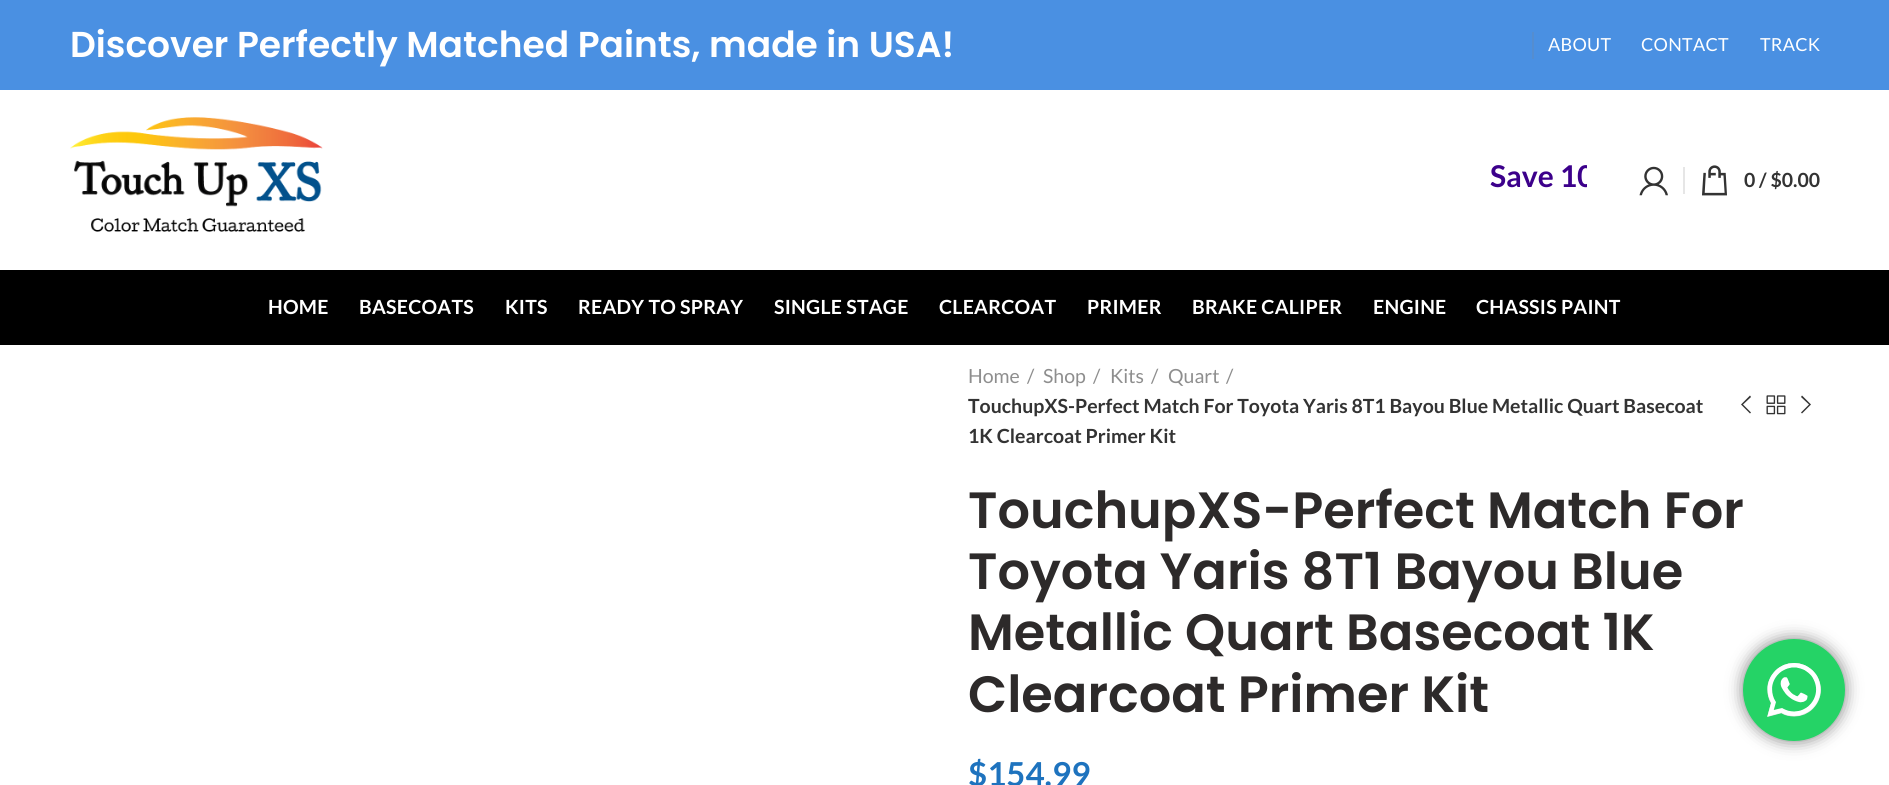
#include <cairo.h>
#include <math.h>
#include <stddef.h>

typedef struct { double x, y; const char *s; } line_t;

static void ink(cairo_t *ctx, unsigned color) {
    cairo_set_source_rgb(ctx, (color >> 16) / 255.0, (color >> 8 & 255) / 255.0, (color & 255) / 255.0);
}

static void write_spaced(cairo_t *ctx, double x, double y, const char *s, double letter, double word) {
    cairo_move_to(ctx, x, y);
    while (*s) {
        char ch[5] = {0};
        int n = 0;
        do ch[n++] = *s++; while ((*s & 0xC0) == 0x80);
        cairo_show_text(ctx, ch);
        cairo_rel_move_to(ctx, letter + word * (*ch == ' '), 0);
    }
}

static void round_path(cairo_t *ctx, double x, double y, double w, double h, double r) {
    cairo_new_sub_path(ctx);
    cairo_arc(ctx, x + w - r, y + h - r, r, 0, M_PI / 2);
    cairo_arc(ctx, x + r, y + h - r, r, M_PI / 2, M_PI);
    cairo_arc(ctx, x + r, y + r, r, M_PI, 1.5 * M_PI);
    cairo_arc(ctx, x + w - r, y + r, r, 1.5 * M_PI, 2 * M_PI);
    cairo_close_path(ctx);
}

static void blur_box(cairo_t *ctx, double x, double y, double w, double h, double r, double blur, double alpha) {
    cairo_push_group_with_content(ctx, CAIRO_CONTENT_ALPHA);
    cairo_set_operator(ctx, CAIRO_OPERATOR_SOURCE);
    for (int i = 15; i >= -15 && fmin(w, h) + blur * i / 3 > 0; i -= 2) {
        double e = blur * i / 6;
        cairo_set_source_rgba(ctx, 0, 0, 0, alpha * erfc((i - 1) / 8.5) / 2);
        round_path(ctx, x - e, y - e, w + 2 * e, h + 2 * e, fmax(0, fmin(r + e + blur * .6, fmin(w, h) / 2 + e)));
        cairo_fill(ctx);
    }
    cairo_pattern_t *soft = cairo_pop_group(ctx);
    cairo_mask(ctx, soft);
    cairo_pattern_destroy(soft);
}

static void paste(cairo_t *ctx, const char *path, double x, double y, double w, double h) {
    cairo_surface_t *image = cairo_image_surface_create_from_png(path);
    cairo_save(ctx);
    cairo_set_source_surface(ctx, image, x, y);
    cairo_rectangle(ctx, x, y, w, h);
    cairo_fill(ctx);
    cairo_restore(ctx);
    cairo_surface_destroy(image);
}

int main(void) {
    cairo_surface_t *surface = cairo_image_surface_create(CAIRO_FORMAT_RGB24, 1889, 785);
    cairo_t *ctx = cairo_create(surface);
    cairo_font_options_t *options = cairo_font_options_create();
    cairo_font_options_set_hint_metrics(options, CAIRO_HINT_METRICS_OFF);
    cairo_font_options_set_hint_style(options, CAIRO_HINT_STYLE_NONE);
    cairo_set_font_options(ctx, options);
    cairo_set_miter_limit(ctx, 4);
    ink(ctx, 0xFFFFFF);
    cairo_paint(ctx);
    ink(ctx, 0x4A90E2);
    cairo_rectangle(ctx, 0, 0, 1889, 90);
    cairo_fill(ctx);
    cairo_select_font_face(ctx, "Poppins SemiBold", CAIRO_FONT_SLANT_NORMAL, CAIRO_FONT_WEIGHT_NORMAL);
    cairo_set_font_size(ctx, 36);
    ink(ctx, 0xFFFFFF);
    cairo_move_to(ctx, 70, 57);
    cairo_show_text(ctx, "Discover Perfectly Matched Paints, made in USA!");
    ink(ctx, 0x558DCF);
    cairo_rectangle(ctx, 1532, 32, 2, 27);
    cairo_fill(ctx);
    cairo_select_font_face(ctx, "Lato", CAIRO_FONT_SLANT_NORMAL, CAIRO_FONT_WEIGHT_NORMAL);
    cairo_set_font_size(ctx, 18);
    ink(ctx, 0xFFFFFF);
    {
        static const line_t items[] = {
            {1548, 51, "ABOUT"},
            {1641, 51, "CONTACT"},
            {1760, 51, "TRACK"},
        };
        for (size_t i = 0; i < sizeof items / sizeof *items; i++) {
            write_spaced(ctx, items[i].x, items[i].y, items[i].s, 0.25, 0);
        }
    }
    paste(ctx, "media/1.png", 70, 117, 253, 115);
    cairo_save(ctx);
    cairo_rectangle(ctx, 401, 152, 1186, 48);
    cairo_clip(ctx);
    cairo_select_font_face(ctx, "Lato", CAIRO_FONT_SLANT_NORMAL, CAIRO_FONT_WEIGHT_BOLD);
    cairo_set_font_size(ctx, 30);
    ink(ctx, 0x3C008B);
    cairo_move_to(ctx, 1490, 187);
    cairo_show_text(ctx, "Save 10");
    cairo_restore(ctx);
    paste(ctx, "media/2.png", 1639, 166, 29, 30);
    ink(ctx, 0xE6E6E6);
    cairo_rectangle(ctx, 1683, 167, 2, 27);
    cairo_fill(ctx);
    paste(ctx, "media/3.png", 1702, 165, 25, 31);
    cairo_select_font_face(ctx, "Lato", CAIRO_FONT_SLANT_NORMAL, CAIRO_FONT_WEIGHT_BOLD);
    cairo_set_font_size(ctx, 19.5);
    ink(ctx, 0x333333);
    cairo_move_to(ctx, 1744, 187);
    cairo_show_text(ctx, "0 / $0.00");
    ink(ctx, 0x000000);
    cairo_rectangle(ctx, 0, 270, 1889, 75);
    cairo_fill(ctx);
    ink(ctx, 0xFFFFFF);
    {
        static const line_t items[] = {
            {268, 314, "HOME"},
            {359, 314, "BASECOATS"},
            {505, 314, "KITS"},
            {578, 314, "READY TO SPRAY"},
            {774, 314, "SINGLE STAGE"},
            {939, 314, "CLEARCOAT"},
            {1087, 314, "PRIMER"},
            {1192, 314, "BRAKE CALIPER"},
            {1373, 314, "ENGINE"},
            {1476, 314, "CHASSIS PAINT"},
        };
        for (size_t i = 0; i < sizeof items / sizeof *items; i++) {
            write_spaced(ctx, items[i].x, items[i].y, items[i].s, 0.25, 0);
        }
    }
    cairo_select_font_face(ctx, "Lato", CAIRO_FONT_SLANT_NORMAL, CAIRO_FONT_WEIGHT_NORMAL);
    ink(ctx, 0x8E8E8E);
    {
        static const line_t items[] = {
            {968, 383, "Home"},
            {1027, 383, "/"},
            {1043, 383, "Shop"},
            {1093, 383, "/"},
            {1110, 383, "Kits"},
            {1151, 383, "/"},
            {1168, 383, "Quart"},
            {1226, 383, "/"},
        };
        for (size_t i = 0; i < sizeof items / sizeof *items; i++) {
            cairo_move_to(ctx, items[i].x, items[i].y);
            cairo_show_text(ctx, items[i].s);
        }
    }
    cairo_select_font_face(ctx, "Lato", CAIRO_FONT_SLANT_NORMAL, CAIRO_FONT_WEIGHT_BOLD);
    ink(ctx, 0x333333);
    cairo_move_to(ctx, 968, 413);
    cairo_show_text(ctx, "TouchupXS-Perfect Match For Toyota Yaris 8T1 Bayou Blue Metallic Quart Basecoat");
    cairo_move_to(ctx, 968, 443);
    cairo_show_text(ctx, "1K Clearcoat Primer Kit");
    cairo_new_path(ctx);
    cairo_move_to(ctx, 1751, 397);
    cairo_line_to(ctx, 1743, 404.5);
    cairo_line_to(ctx, 1751, 412.5);
    cairo_line_to(ctx, 1750, 413.5);
    cairo_line_to(ctx, 1741, 404.5);
    cairo_line_to(ctx, 1750, 395.5);
    cairo_close_path(ctx);
    cairo_fill(ctx);
    paste(ctx, "media/4.png", 1766, 395, 20, 20);
    cairo_new_path(ctx);
    cairo_move_to(ctx, 1802, 395.5);
    cairo_line_to(ctx, 1811, 404.5);
    cairo_line_to(ctx, 1802, 413.5);
    cairo_line_to(ctx, 1801, 412.5);
    cairo_line_to(ctx, 1809, 404.5);
    cairo_line_to(ctx, 1801, 397);
    cairo_close_path(ctx);
    cairo_fill(ctx);
    cairo_select_font_face(ctx, "Poppins SemiBold", CAIRO_FONT_SLANT_NORMAL, CAIRO_FONT_WEIGHT_NORMAL);
    cairo_set_font_size(ctx, 51);
    ink(ctx, 0x2D2A2A);
    {
        static const line_t items[] = {
            {968, 528, "TouchupXS-Perfect Match For"},
            {968, 589, "Toyota Yaris 8T1 Bayou Blue"},
            {968, 650, "Metallic Quart Basecoat 1K"},
            {968, 712, "Clearcoat Primer Kit"},
        };
        for (size_t i = 0; i < sizeof items / sizeof *items; i++) {
            cairo_move_to(ctx, items[i].x, items[i].y);
            cairo_show_text(ctx, items[i].s);
        }
    }
    cairo_select_font_face(ctx, "Lato", CAIRO_FONT_SLANT_NORMAL, CAIRO_FONT_WEIGHT_BOLD);
    cairo_set_font_size(ctx, 33);
    ink(ctx, 0x1E73BE);
    cairo_move_to(ctx, 968, 786);
    cairo_show_text(ctx, "$154.99");
    ink(ctx, 0x000000);
    blur_box(ctx, 1743, 639, 102, 102, 51, 8, 0.5);
    ink(ctx, 0x25D366);
    cairo_arc(ctx, 1794, 690, 51, 0, 2 * M_PI);
    cairo_fill(ctx);
    paste(ctx, "media/5.png", 1767, 663, 54, 54);
    cairo_surface_write_to_png(surface, "image.png");
    cairo_font_options_destroy(options);
    cairo_destroy(ctx);
    cairo_surface_destroy(surface);
    return 0;
}
